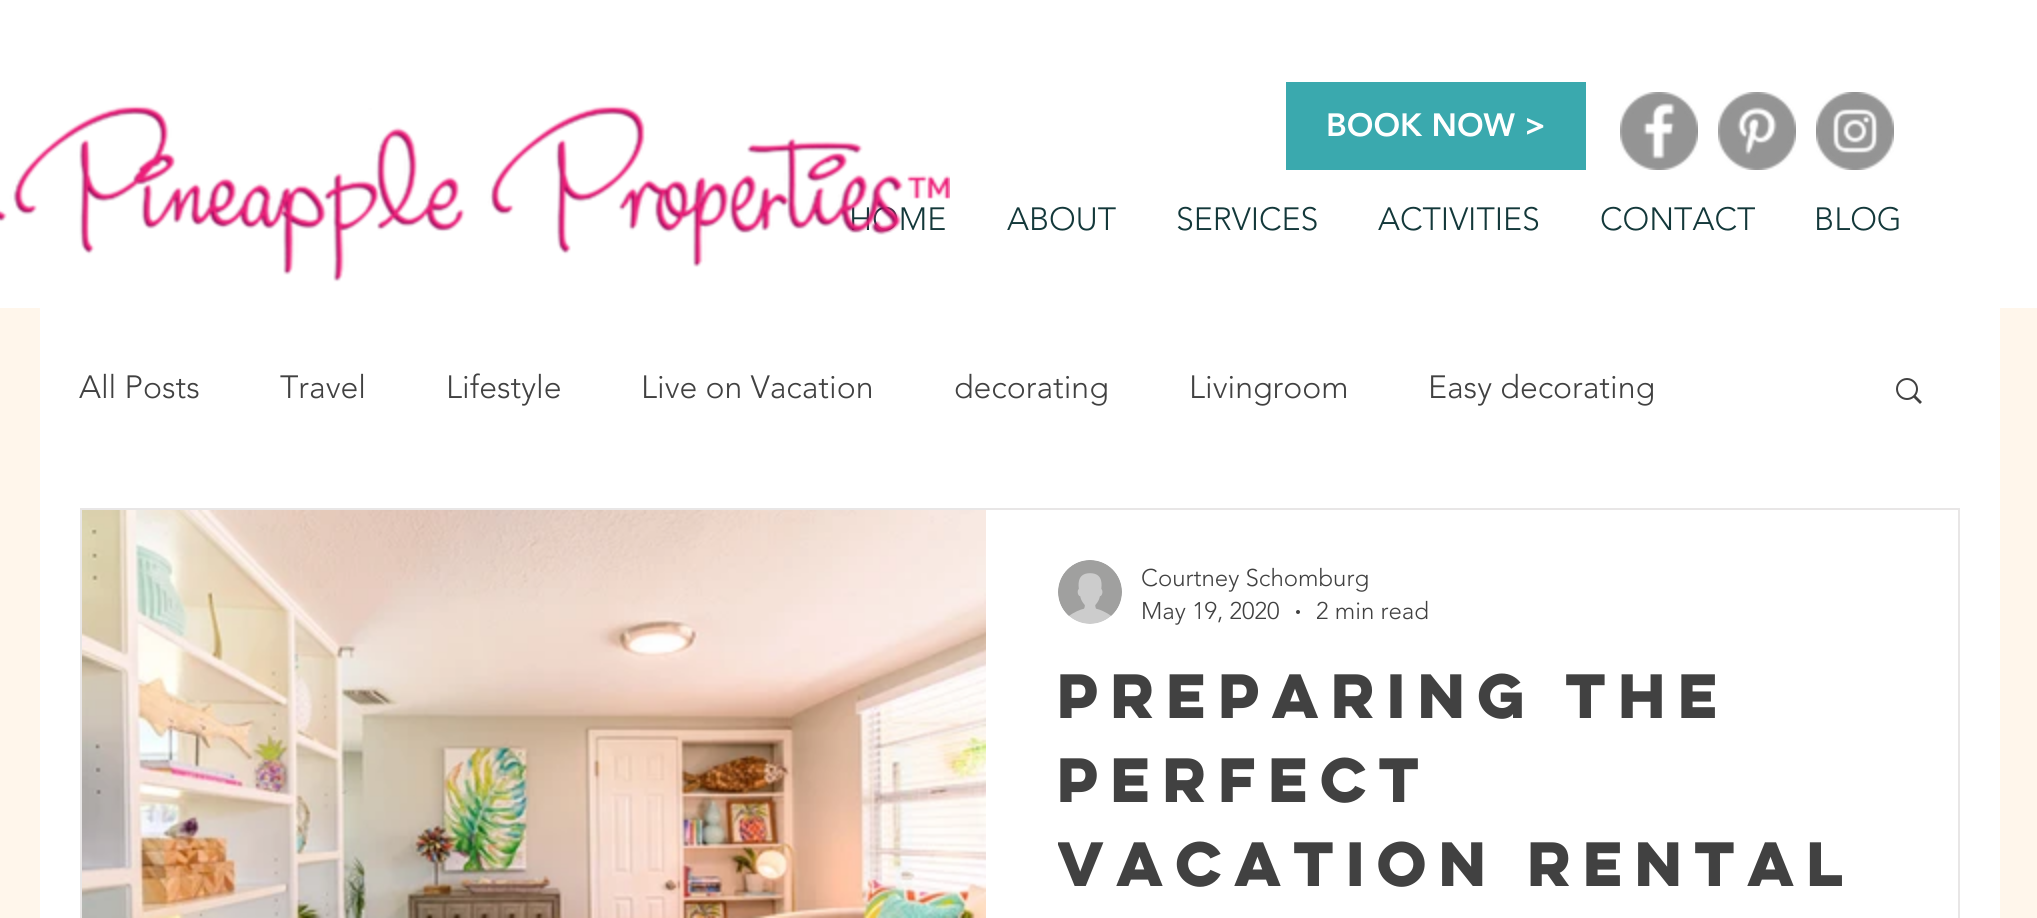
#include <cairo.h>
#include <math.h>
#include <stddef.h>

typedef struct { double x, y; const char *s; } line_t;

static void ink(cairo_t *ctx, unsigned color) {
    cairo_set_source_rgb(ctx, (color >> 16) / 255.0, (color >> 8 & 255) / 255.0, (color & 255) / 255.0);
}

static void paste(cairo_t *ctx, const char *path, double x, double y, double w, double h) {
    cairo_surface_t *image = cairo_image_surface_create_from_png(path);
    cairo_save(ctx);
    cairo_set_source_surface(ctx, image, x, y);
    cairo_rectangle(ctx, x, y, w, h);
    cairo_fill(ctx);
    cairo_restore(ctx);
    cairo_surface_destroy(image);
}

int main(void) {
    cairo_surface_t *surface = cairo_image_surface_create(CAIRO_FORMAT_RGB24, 2037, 918);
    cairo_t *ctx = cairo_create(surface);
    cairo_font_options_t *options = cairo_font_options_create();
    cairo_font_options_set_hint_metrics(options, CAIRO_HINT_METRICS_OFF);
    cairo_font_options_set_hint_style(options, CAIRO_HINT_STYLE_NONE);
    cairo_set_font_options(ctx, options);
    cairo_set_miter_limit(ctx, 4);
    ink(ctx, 0xFFF6EB);
    cairo_paint(ctx);
    ink(ctx, 0xFFFFFF);
    cairo_rectangle(ctx, 0, 0, 2037, 308);
    cairo_fill(ctx);
    cairo_select_font_face(ctx, "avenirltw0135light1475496 Light", CAIRO_FONT_SLANT_NORMAL, CAIRO_FONT_WEIGHT_NORMAL);
    cairo_set_font_size(ctx, 32);
    ink(ctx, 0x13383A);
    cairo_move_to(ctx, 849, 230);
    cairo_show_text(ctx, "HOME");
    paste(ctx, "media/1.png", 0, 105, 950, 177);
    ink(ctx, 0x3AA9AE);
    cairo_rectangle(ctx, 1286, 82, 300, 88);
    cairo_fill(ctx);
    cairo_select_font_face(ctx, "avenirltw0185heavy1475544 Black", CAIRO_FONT_SLANT_NORMAL, CAIRO_FONT_WEIGHT_NORMAL);
    ink(ctx, 0xFFFFFF);
    cairo_move_to(ctx, 1326, 136);
    cairo_show_text(ctx, "BOOK NOW >");
    paste(ctx, "media/2.png", 1620, 92, 78, 78);
    paste(ctx, "media/3.png", 1718, 92, 78, 78);
    paste(ctx, "media/4.png", 1816, 92, 78, 78);
    cairo_select_font_face(ctx, "avenirltw0135light1475496 Light", CAIRO_FONT_SLANT_NORMAL, CAIRO_FONT_WEIGHT_NORMAL);
    ink(ctx, 0x13383A);
    {
        static const line_t items[] = {
            {1007, 230, "ABOUT"},
            {1176, 230, "SERVICES"},
            {1378, 230, "ACTIVITIES"},
            {1600, 230, "CONTACT"},
            {1814, 230, "BLOG"},
        };
        for (size_t i = 0; i < sizeof items / sizeof *items; i++) {
            cairo_move_to(ctx, items[i].x, items[i].y);
            cairo_show_text(ctx, items[i].s);
        }
    }
    ink(ctx, 0xFFFFFF);
    cairo_rectangle(ctx, 40, 308, 1960, 610);
    cairo_fill(ctx);
    ink(ctx, 0x414141);
    {
        static const line_t items[] = {
            {79, 398, "All Posts"},
            {280, 398, "Travel"},
            {446, 398, "Lifestyle"},
            {641, 398, "Live on Vacation"},
            {954, 398, "decorating"},
            {1189, 398, "Livingroom"},
            {1428, 398, "Easy decorating"},
        };
        for (size_t i = 0; i < sizeof items / sizeof *items; i++) {
            cairo_move_to(ctx, items[i].x, items[i].y);
            cairo_show_text(ctx, items[i].s);
        }
    }
    paste(ctx, "media/5.png", 1896, 378, 26, 26);
    cairo_rectangle(ctx, 81, 509, 1878, 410);
    ink(ctx, 0xE8E6E6);
    cairo_stroke(ctx);
    paste(ctx, "media/6.png", 82, 510, 904, 408);
    paste(ctx, "media/7.png", 1058, 560, 64, 64);
    cairo_set_font_size(ctx, 24);
    ink(ctx, 0x414141);
    cairo_move_to(ctx, 1141, 586);
    cairo_show_text(ctx, "Courtney Schomburg");
    cairo_move_to(ctx, 1141, 619);
    cairo_show_text(ctx, "May 19, 2020");
    cairo_new_path(ctx);
    cairo_arc(ctx, 1298, 612, 2, 0, 2 * M_PI);
    cairo_fill(ctx);
    cairo_move_to(ctx, 1316, 619);
    cairo_show_text(ctx, "2 min read");
    cairo_select_font_face(ctx, "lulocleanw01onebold", CAIRO_FONT_SLANT_NORMAL, CAIRO_FONT_WEIGHT_BOLD);
    cairo_set_font_size(ctx, 56);
    cairo_move_to(ctx, 1057, 718);
    cairo_show_text(ctx, "Preparing the");
    cairo_move_to(ctx, 1057, 802);
    cairo_show_text(ctx, "Perfect");
    cairo_save(ctx);
    cairo_rectangle(ctx, 1058, 652, 828, 252);
    cairo_clip(ctx);
    cairo_move_to(ctx, 1057, 886);
    cairo_show_text(ctx, "Vacation Rental");
    cairo_restore(ctx);
    cairo_surface_write_to_png(surface, "image.png");
    cairo_font_options_destroy(options);
    cairo_destroy(ctx);
    cairo_surface_destroy(surface);
    return 0;
}
